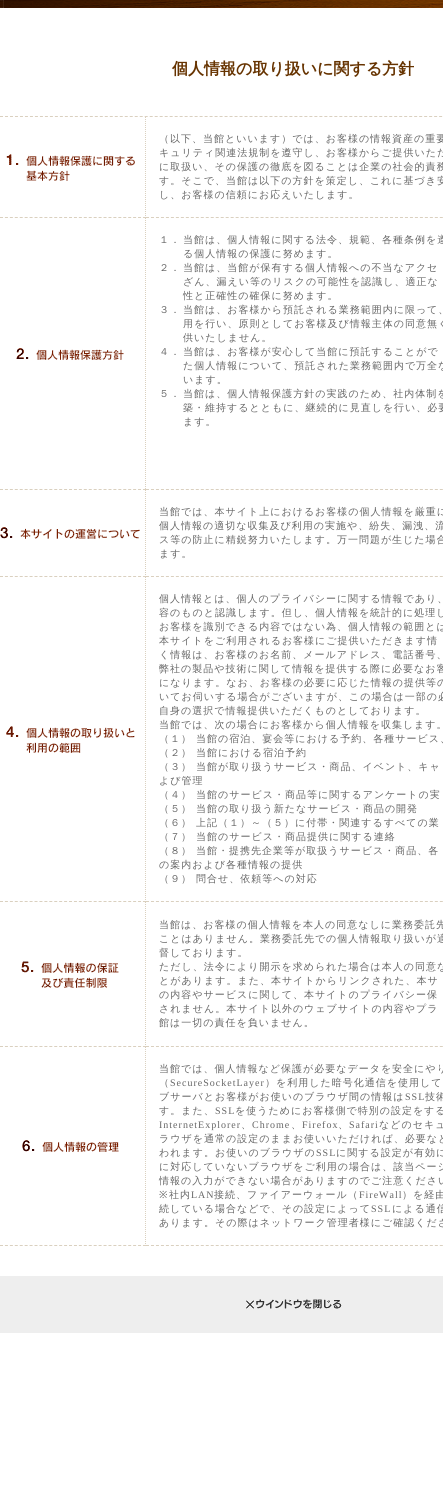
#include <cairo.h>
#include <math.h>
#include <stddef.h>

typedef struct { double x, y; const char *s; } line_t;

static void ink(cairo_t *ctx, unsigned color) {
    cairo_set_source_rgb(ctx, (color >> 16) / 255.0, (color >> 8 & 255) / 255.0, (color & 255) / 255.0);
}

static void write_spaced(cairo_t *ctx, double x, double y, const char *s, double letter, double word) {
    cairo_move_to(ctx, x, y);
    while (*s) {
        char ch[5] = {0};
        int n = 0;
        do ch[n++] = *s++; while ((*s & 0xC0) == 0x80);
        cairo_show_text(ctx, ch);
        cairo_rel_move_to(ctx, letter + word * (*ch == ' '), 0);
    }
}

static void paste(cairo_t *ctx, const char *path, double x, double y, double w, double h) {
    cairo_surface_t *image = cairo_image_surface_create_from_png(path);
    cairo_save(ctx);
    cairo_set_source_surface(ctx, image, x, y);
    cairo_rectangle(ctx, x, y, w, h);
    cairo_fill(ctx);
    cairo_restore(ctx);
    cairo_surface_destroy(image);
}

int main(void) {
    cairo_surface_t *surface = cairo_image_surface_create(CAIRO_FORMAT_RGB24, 443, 1502);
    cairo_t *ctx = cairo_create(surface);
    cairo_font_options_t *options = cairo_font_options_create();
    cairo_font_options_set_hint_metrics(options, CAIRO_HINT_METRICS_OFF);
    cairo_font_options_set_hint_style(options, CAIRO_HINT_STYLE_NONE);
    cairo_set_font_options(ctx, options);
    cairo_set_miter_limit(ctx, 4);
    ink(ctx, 0xFFFFFF);
    cairo_paint(ctx);
    paste(ctx, "media/1.png", 0, 0, 4, 8);
    paste(ctx, "media/2.png", 4, 0, 439, 8);
    cairo_select_font_face(ctx, "WenQuanYi Zen Hei", CAIRO_FONT_SLANT_NORMAL, CAIRO_FONT_WEIGHT_BOLD);
    cairo_set_font_size(ctx, 16);
    ink(ctx, 0x663300);
    cairo_move_to(ctx, 172, 74);
    cairo_show_text(ctx, "個人情報の取り扱いに関する方針");
    cairo_new_path(ctx);
    cairo_move_to(ctx, 0, 116.5);
    cairo_line_to(ctx, 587, 116.5);
    ink(ctx, 0xDAD0BF);
    cairo_set_line_width(ctx, 1);
    cairo_set_dash(ctx, (double[]){3, 1.99}, 2, 0);
    cairo_stroke(ctx);
    cairo_new_path(ctx);
    cairo_move_to(ctx, 145.5, 117);
    cairo_line_to(ctx, 145.5, 218);
    cairo_set_dash(ctx, (double[]){1, 1}, 2, 0);
    cairo_stroke(ctx);
    cairo_new_path(ctx);
    cairo_move_to(ctx, 0, 217.5);
    cairo_line_to(ctx, 146, 217.5);
    cairo_set_dash(ctx, (double[]){3, 1.93}, 2, 0);
    cairo_stroke(ctx);
    paste(ctx, "media/3.png", 6, 154, 129, 27);
    cairo_new_path(ctx);
    cairo_move_to(ctx, 146, 217.5);
    cairo_line_to(ctx, 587, 217.5);
    cairo_set_dash(ctx, (double[]){3, 1.98}, 2, 0);
    cairo_stroke(ctx);
    cairo_select_font_face(ctx, "WenQuanYi Zen Hei Medium", CAIRO_FONT_SLANT_NORMAL, CAIRO_FONT_WEIGHT_NORMAL);
    cairo_set_font_size(ctx, 10);
    ink(ctx, 0x666666);
    {
        static const line_t items[] = {
            {159, 142, "（以下、当館といいます）では、お客様の情報資産の重要"},
            {159, 156, "キュリティ関連法規制を遵守し、お客様からご提供いただ"},
            {159, 170, "に取扱い、その保護の徹底を図ることは企業の社会的責務"},
            {159, 184, "す。そこで、当館は以下の方針を策定し、これに基づき安"},
            {159, 198, "し、お客様の信頼にお応えいたします。"},
        };
        for (size_t i = 0; i < sizeof items / sizeof *items; i++) {
            write_spaced(ctx, items[i].x, items[i].y, items[i].s, 1, 0);
        }
    }
    cairo_new_path(ctx);
    cairo_move_to(ctx, 145.5, 218);
    cairo_line_to(ctx, 145.5, 490);
    ink(ctx, 0xDAD0BF);
    cairo_set_dash(ctx, (double[]){1, 1}, 2, 0);
    cairo_stroke(ctx);
    cairo_new_path(ctx);
    cairo_move_to(ctx, 0, 489.5);
    cairo_line_to(ctx, 146, 489.5);
    cairo_set_dash(ctx, (double[]){3, 1.93}, 2, 0);
    cairo_stroke(ctx);
    paste(ctx, "media/4.png", 16, 348, 108, 12);
    cairo_new_path(ctx);
    cairo_move_to(ctx, 146, 489.5);
    cairo_line_to(ctx, 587, 489.5);
    cairo_set_dash(ctx, (double[]){3, 1.98}, 2, 0);
    cairo_stroke(ctx);
    ink(ctx, 0x666666);
    {
        static const line_t items[] = {
            {159, 243, "１．"},
            {159, 271, "２．"},
            {159, 313, "３．"},
            {159, 355, "４．"},
            {159, 397, "５．"},
            {183, 243, "当館は、個人情報に関する法令、規範、各種条例を遵"},
            {183, 257, "る個人情報の保護に努めます。"},
            {183, 271, "当館は、当館が保有する個人情報への不当なアクセ"},
            {183, 285, "ざん、漏えい等のリスクの可能性を認識し、適正な"},
            {183, 299, "性と正確性の確保に努めます。"},
            {183, 313, "当館は、お客様から預託される業務範囲内に限って、"},
            {183, 327, "用を行い、原則としてお客様及び情報主体の同意無く"},
            {183, 341, "供いたしません。"},
            {183, 355, "当館は、お客様が安心して当館に預託することがで"},
            {183, 369, "た個人情報について、預託された業務範囲内で万全な"},
            {183, 383, "います。"},
            {183, 397, "当館は、個人情報保護方針の実践のため、社内体制を"},
            {183, 411, "築・維持するとともに、継続的に見直しを行い、必要"},
            {183, 425, "ます。"},
        };
        for (size_t i = 0; i < sizeof items / sizeof *items; i++) {
            write_spaced(ctx, items[i].x, items[i].y, items[i].s, 1, 0);
        }
    }
    cairo_new_path(ctx);
    cairo_move_to(ctx, 145.5, 490);
    cairo_line_to(ctx, 145.5, 577);
    ink(ctx, 0xDAD0BF);
    cairo_set_dash(ctx, (double[]){1, 1}, 2, 0);
    cairo_stroke(ctx);
    cairo_new_path(ctx);
    cairo_move_to(ctx, 0, 576.5);
    cairo_line_to(ctx, 146, 576.5);
    cairo_set_dash(ctx, (double[]){3, 1.93}, 2, 0);
    cairo_stroke(ctx);
    paste(ctx, "media/5.png", 0, 527, 140, 12);
    cairo_new_path(ctx);
    cairo_move_to(ctx, 146, 576.5);
    cairo_line_to(ctx, 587, 576.5);
    cairo_set_dash(ctx, (double[]){3, 1.98}, 2, 0);
    cairo_stroke(ctx);
    ink(ctx, 0x666666);
    {
        static const line_t items[] = {
            {159, 515, "当館では、本サイト上におけるお客様の個人情報を厳重に"},
            {159, 529, "個人情報の適切な収集及び利用の実施や、紛失、漏洩、流"},
            {159, 543, "ス等の防止に精鋭努力いたします。万一問題が生じた場合"},
            {159, 557, "ます。"},
        };
        for (size_t i = 0; i < sizeof items / sizeof *items; i++) {
            write_spaced(ctx, items[i].x, items[i].y, items[i].s, 1, 0);
        }
    }
    cairo_new_path(ctx);
    cairo_move_to(ctx, 145.5, 577);
    cairo_line_to(ctx, 145.5, 902);
    ink(ctx, 0xDAD0BF);
    cairo_set_dash(ctx, (double[]){1, 1}, 2, 0);
    cairo_stroke(ctx);
    cairo_new_path(ctx);
    cairo_move_to(ctx, 0, 901.5);
    cairo_line_to(ctx, 146, 901.5);
    cairo_set_dash(ctx, (double[]){3, 1.93}, 2, 0);
    cairo_stroke(ctx);
    paste(ctx, "media/6.png", 6, 726, 129, 27);
    cairo_new_path(ctx);
    cairo_move_to(ctx, 146, 901.5);
    cairo_line_to(ctx, 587, 901.5);
    cairo_set_dash(ctx, (double[]){3, 1.98}, 2, 0);
    cairo_stroke(ctx);
    ink(ctx, 0x666666);
    {
        static const line_t items[] = {
            {159, 602, "個人情報とは、個人のプライバシーに関する情報であり、"},
            {159, 616, "容のものと認識します。但し、個人情報を統計的に処理し"},
            {159, 630, "お客様を識別できる内容ではない為、個人情報の範囲とは"},
            {159, 644, "本サイトをご利用されるお客様にご提供いただきます情"},
            {159, 658, "く情報は、お客様のお名前、メールアドレス、電話番号、"},
            {159, 672, "弊社の製品や技術に関して情報を提供する際に必要なお客"},
            {159, 686, "になります。なお、お客様の必要に応じた情報の提供等の"},
            {159, 700, "いてお伺いする場合がございますが、この場合は一部の必"},
            {159, 714, "自身の選択で情報提供いただくものとしております。"},
            {159, 728, "当館では、次の場合にお客様から個人情報を収集します。"},
            {159, 742, "（１） 当館の宿泊、宴会等における予約、各種サービス、"},
            {159, 756, "（２） 当館における宿泊予約"},
            {159, 770, "（３） 当館が取り扱うサービス・商品、イベント、キャ"},
            {159, 784, "よび管理"},
            {159, 798, "（４） 当館のサービス・商品等に関するアンケートの実"},
            {159, 812, "（５） 当館の取り扱う新たなサービス・商品の開発"},
            {159, 826, "（６） 上記（１）～（５）に付帯・関連するすべての業"},
            {159, 840, "（７） 当館のサービス・商品提供に関する連絡"},
            {159, 854, "（８） 当館・提携先企業等が取扱うサービス・商品、各"},
            {159, 868, "の案内および各種情報の提供"},
            {159, 882, "（９） 問合せ、依頼等への対応"},
        };
        for (size_t i = 0; i < sizeof items / sizeof *items; i++) {
            write_spaced(ctx, items[i].x, items[i].y, items[i].s, 1, 0);
        }
    }
    cairo_new_path(ctx);
    cairo_move_to(ctx, 145.5, 902);
    cairo_line_to(ctx, 145.5, 1047);
    ink(ctx, 0xDAD0BF);
    cairo_set_dash(ctx, (double[]){1, 1}, 2, 0);
    cairo_stroke(ctx);
    cairo_new_path(ctx);
    cairo_move_to(ctx, 0, 1046.5);
    cairo_line_to(ctx, 146, 1046.5);
    cairo_set_dash(ctx, (double[]){3, 1.93}, 2, 0);
    cairo_stroke(ctx);
    paste(ctx, "media/7.png", 21, 961, 98, 27);
    cairo_new_path(ctx);
    cairo_move_to(ctx, 146, 1046.5);
    cairo_line_to(ctx, 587, 1046.5);
    cairo_set_dash(ctx, (double[]){3, 1.98}, 2, 0);
    cairo_stroke(ctx);
    ink(ctx, 0x666666);
    {
        static const line_t items[] = {
            {159, 928, "当館は、お客様の個人情報を本人の同意なしに業務委託先"},
            {159, 942, "ことはありません。業務委託先での個人情報取り扱いが適"},
            {159, 956, "督しております。"},
            {159, 970, "ただし、法令により開示を求められた場合は本人の同意な"},
            {159, 984, "とがあります。また、本サイトからリンクされた、本サ"},
            {159, 998, "の内容やサービスに関して、本サイトのプライバシー保"},
            {159, 1012, "されません。本サイト以外のウェブサイトの内容やプラ"},
            {159, 1026, "館は一切の責任を負いません。"},
        };
        for (size_t i = 0; i < sizeof items / sizeof *items; i++) {
            write_spaced(ctx, items[i].x, items[i].y, items[i].s, 1, 0);
        }
    }
    cairo_new_path(ctx);
    cairo_move_to(ctx, 145.5, 1047);
    cairo_line_to(ctx, 145.5, 1246);
    ink(ctx, 0xDAD0BF);
    cairo_set_dash(ctx, (double[]){1, 1}, 2, 0);
    cairo_stroke(ctx);
    cairo_new_path(ctx);
    cairo_move_to(ctx, 0, 1245.5);
    cairo_line_to(ctx, 146, 1245.5);
    cairo_set_dash(ctx, (double[]){3, 1.93}, 2, 0);
    cairo_stroke(ctx);
    paste(ctx, "media/8.png", 22, 1140, 97, 12);
    cairo_new_path(ctx);
    cairo_move_to(ctx, 146, 1245.5);
    cairo_line_to(ctx, 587, 1245.5);
    cairo_set_dash(ctx, (double[]){3, 1.98}, 2, 0);
    cairo_stroke(ctx);
    ink(ctx, 0x666666);
    write_spaced(ctx, 159, 1072, "当館では、個人情報など保護が必要なデータを安全にやり", 1, 0);
    write_spaced(ctx, 159, 1086, "（", 1, 0);
    cairo_select_font_face(ctx, "Liberation Serif", CAIRO_FONT_SLANT_NORMAL, CAIRO_FONT_WEIGHT_NORMAL);
    write_spaced(ctx, 170, 1086, "SecureSocketLayer", 1, 0);
    cairo_select_font_face(ctx, "WenQuanYi Zen Hei Medium", CAIRO_FONT_SLANT_NORMAL, CAIRO_FONT_WEIGHT_NORMAL);
    write_spaced(ctx, 265, 1086, "）を利用した暗号化通信を使用して", 1, 0);
    write_spaced(ctx, 159, 1100, "ブサーバとお客様がお使いのブラウザ間の情報は", 1, 0);
    cairo_select_font_face(ctx, "Liberation Serif", CAIRO_FONT_SLANT_NORMAL, CAIRO_FONT_WEIGHT_NORMAL);
    write_spaced(ctx, 405, 1100, "SSL", 1, 0);
    cairo_select_font_face(ctx, "WenQuanYi Zen Hei Medium", CAIRO_FONT_SLANT_NORMAL, CAIRO_FONT_WEIGHT_NORMAL);
    write_spaced(ctx, 425, 1100, "技術", 1, 0);
    write_spaced(ctx, 159, 1114, "す。また、", 1, 0);
    cairo_select_font_face(ctx, "Liberation Serif", CAIRO_FONT_SLANT_NORMAL, CAIRO_FONT_WEIGHT_NORMAL);
    write_spaced(ctx, 215, 1114, "SSL", 1, 0);
    cairo_select_font_face(ctx, "WenQuanYi Zen Hei Medium", CAIRO_FONT_SLANT_NORMAL, CAIRO_FONT_WEIGHT_NORMAL);
    write_spaced(ctx, 235, 1114, "を使うためにお客様側で特別の設定をする", 1, 0);
    cairo_select_font_face(ctx, "Liberation Serif", CAIRO_FONT_SLANT_NORMAL, CAIRO_FONT_WEIGHT_NORMAL);
    write_spaced(ctx, 159, 1128, "InternetExplorer", 1, 0);
    cairo_select_font_face(ctx, "WenQuanYi Zen Hei Medium", CAIRO_FONT_SLANT_NORMAL, CAIRO_FONT_WEIGHT_NORMAL);
    write_spaced(ctx, 241, 1128, "、", 1, 0);
    cairo_select_font_face(ctx, "Liberation Serif", CAIRO_FONT_SLANT_NORMAL, CAIRO_FONT_WEIGHT_NORMAL);
    write_spaced(ctx, 252, 1128, "Chrome", 1, 0);
    cairo_select_font_face(ctx, "WenQuanYi Zen Hei Medium", CAIRO_FONT_SLANT_NORMAL, CAIRO_FONT_WEIGHT_NORMAL);
    write_spaced(ctx, 291, 1128, "、", 1, 0);
    cairo_select_font_face(ctx, "Liberation Serif", CAIRO_FONT_SLANT_NORMAL, CAIRO_FONT_WEIGHT_NORMAL);
    write_spaced(ctx, 302, 1128, "Firefox", 1, 0);
    cairo_select_font_face(ctx, "WenQuanYi Zen Hei Medium", CAIRO_FONT_SLANT_NORMAL, CAIRO_FONT_WEIGHT_NORMAL);
    write_spaced(ctx, 338, 1128, "、", 1, 0);
    cairo_select_font_face(ctx, "Liberation Serif", CAIRO_FONT_SLANT_NORMAL, CAIRO_FONT_WEIGHT_NORMAL);
    write_spaced(ctx, 349, 1128, "Safari", 1, 0);
    cairo_select_font_face(ctx, "WenQuanYi Zen Hei Medium", CAIRO_FONT_SLANT_NORMAL, CAIRO_FONT_WEIGHT_NORMAL);
    {
        static const line_t items[] = {
            {379, 1128, "などのセキュ"},
            {159, 1142, "ラウザを通常の設定のままお使いいただければ、必要なと"},
            {159, 1156, "われます。お使いのブラウザの"},
        };
        for (size_t i = 0; i < sizeof items / sizeof *items; i++) {
            write_spaced(ctx, items[i].x, items[i].y, items[i].s, 1, 0);
        }
    }
    cairo_select_font_face(ctx, "Liberation Serif", CAIRO_FONT_SLANT_NORMAL, CAIRO_FONT_WEIGHT_NORMAL);
    write_spaced(ctx, 316, 1156, "SSL", 1, 0);
    cairo_select_font_face(ctx, "WenQuanYi Zen Hei Medium", CAIRO_FONT_SLANT_NORMAL, CAIRO_FONT_WEIGHT_NORMAL);
    {
        static const line_t items[] = {
            {336, 1156, "に関する設定が有効に"},
            {159, 1170, "に対応していないブラウザをご利用の場合は、該当ページ"},
            {159, 1184, "情報の入力ができない場合がありますのでご注意ください"},
        };
        for (size_t i = 0; i < sizeof items / sizeof *items; i++) {
            write_spaced(ctx, items[i].x, items[i].y, items[i].s, 1, 0);
        }
    }
    cairo_select_font_face(ctx, "Noto Sans", CAIRO_FONT_SLANT_NORMAL, CAIRO_FONT_WEIGHT_NORMAL);
    write_spaced(ctx, 159, 1198, "※", 1, 0);
    cairo_select_font_face(ctx, "WenQuanYi Zen Hei Medium", CAIRO_FONT_SLANT_NORMAL, CAIRO_FONT_WEIGHT_NORMAL);
    write_spaced(ctx, 169, 1198, "社内", 1, 0);
    cairo_select_font_face(ctx, "Liberation Serif", CAIRO_FONT_SLANT_NORMAL, CAIRO_FONT_WEIGHT_NORMAL);
    write_spaced(ctx, 191, 1198, "LAN", 1, 0);
    cairo_select_font_face(ctx, "WenQuanYi Zen Hei Medium", CAIRO_FONT_SLANT_NORMAL, CAIRO_FONT_WEIGHT_NORMAL);
    write_spaced(ctx, 214, 1198, "接続、ファイアーウォール（", 1, 0);
    cairo_select_font_face(ctx, "Liberation Serif", CAIRO_FONT_SLANT_NORMAL, CAIRO_FONT_WEIGHT_NORMAL);
    write_spaced(ctx, 359, 1198, "FireWall", 1, 0);
    cairo_select_font_face(ctx, "WenQuanYi Zen Hei Medium", CAIRO_FONT_SLANT_NORMAL, CAIRO_FONT_WEIGHT_NORMAL);
    write_spaced(ctx, 402, 1198, "）を経由", 1, 0);
    write_spaced(ctx, 159, 1212, "続している場合などで、その設定によって", 1, 0);
    cairo_select_font_face(ctx, "Liberation Serif", CAIRO_FONT_SLANT_NORMAL, CAIRO_FONT_WEIGHT_NORMAL);
    write_spaced(ctx, 371, 1212, "SSL", 1, 0);
    cairo_select_font_face(ctx, "WenQuanYi Zen Hei Medium", CAIRO_FONT_SLANT_NORMAL, CAIRO_FONT_WEIGHT_NORMAL);
    write_spaced(ctx, 392, 1212, "による通信", 1, 0);
    write_spaced(ctx, 159, 1226, "あります。その際はネットワーク管理者様にご確認くださ", 1, 0);
    ink(ctx, 0xEEEEEE);
    cairo_rectangle(ctx, 0, 1276, 443, 57);
    cairo_fill(ctx);
    paste(ctx, "media/9.png", 246, 1299, 96, 10);
    cairo_surface_write_to_png(surface, "image.png");
    cairo_font_options_destroy(options);
    cairo_destroy(ctx);
    cairo_surface_destroy(surface);
    return 0;
}
